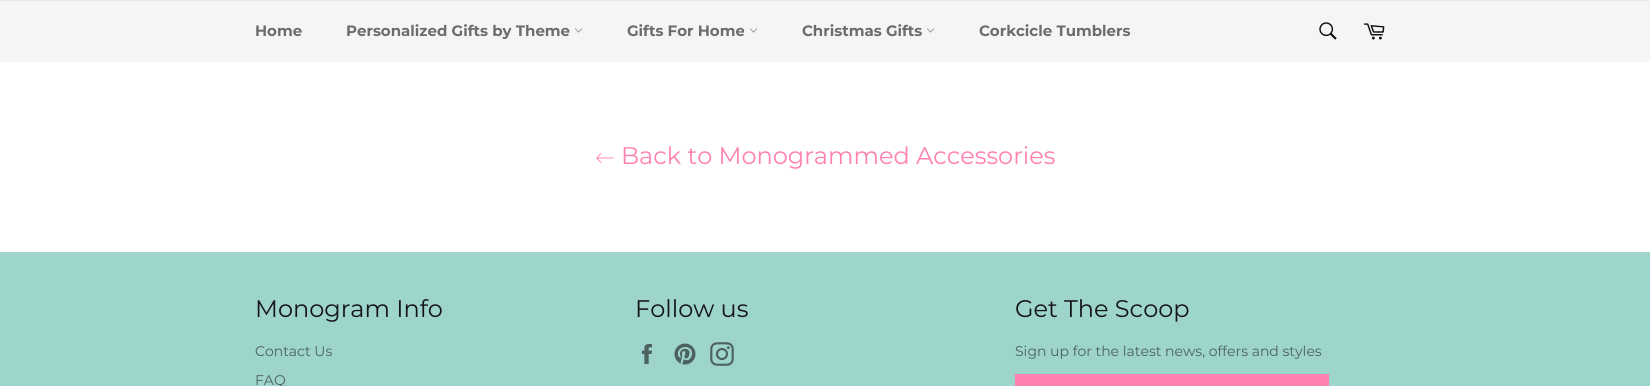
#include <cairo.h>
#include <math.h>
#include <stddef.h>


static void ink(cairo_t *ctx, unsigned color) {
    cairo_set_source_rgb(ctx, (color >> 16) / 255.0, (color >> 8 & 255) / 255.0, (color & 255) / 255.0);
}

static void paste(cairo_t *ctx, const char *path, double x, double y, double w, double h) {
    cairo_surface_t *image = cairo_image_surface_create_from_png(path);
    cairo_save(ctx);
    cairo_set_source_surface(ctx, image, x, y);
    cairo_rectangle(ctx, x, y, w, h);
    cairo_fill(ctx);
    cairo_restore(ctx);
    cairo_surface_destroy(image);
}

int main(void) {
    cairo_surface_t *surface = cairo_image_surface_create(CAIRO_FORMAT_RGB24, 1650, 386);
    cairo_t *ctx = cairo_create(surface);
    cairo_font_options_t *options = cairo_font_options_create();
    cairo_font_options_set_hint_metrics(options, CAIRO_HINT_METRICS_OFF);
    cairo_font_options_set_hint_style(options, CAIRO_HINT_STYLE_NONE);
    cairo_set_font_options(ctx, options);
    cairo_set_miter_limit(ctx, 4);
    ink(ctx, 0xFFFFFF);
    cairo_paint(ctx);
    ink(ctx, 0xF5F5F5);
    cairo_rectangle(ctx, 0, 1, 1650, 61);
    cairo_fill(ctx);
    ink(ctx, 0xE8E8E8);
    cairo_rectangle(ctx, 0, 0, 1650, 1);
    cairo_fill(ctx);
    cairo_select_font_face(ctx, "Montserrat", CAIRO_FONT_SLANT_NORMAL, CAIRO_FONT_WEIGHT_BOLD);
    cairo_set_font_size(ctx, 15);
    ink(ctx, 0x6D6C6D);
    cairo_move_to(ctx, 255, 36);
    cairo_show_text(ctx, "Home");
    cairo_move_to(ctx, 346, 36);
    cairo_show_text(ctx, "Personalized Gifts by Theme");
    paste(ctx, "media/1.png", 575, 28, 7, 5);
    cairo_move_to(ctx, 627, 36);
    cairo_show_text(ctx, "Gifts For Home");
    paste(ctx, "media/1.png", 750, 28, 7, 5);
    cairo_move_to(ctx, 802, 36);
    cairo_show_text(ctx, "Christmas Gifts");
    paste(ctx, "media/1.png", 927, 28, 7, 5);
    cairo_move_to(ctx, 979, 36);
    cairo_show_text(ctx, "Corkcicle Tumblers");
    paste(ctx, "media/2.png", 1319, 22, 18, 18);
    paste(ctx, "media/3.png", 1363, 23, 22, 17);
    paste(ctx, "media/4.png", 596, 152, 18, 12);
    cairo_select_font_face(ctx, "Montserrat", CAIRO_FONT_SLANT_NORMAL, CAIRO_FONT_WEIGHT_NORMAL);
    cairo_set_font_size(ctx, 24);
    ink(ctx, 0xFE81B1);
    cairo_move_to(ctx, 621, 164);
    cairo_show_text(ctx, "Back to Monogrammed Accessories");
    ink(ctx, 0x9DD4CC);
    cairo_rectangle(ctx, 0, 252, 1650, 134);
    cairo_fill(ctx);
    ink(ctx, 0x161516);
    cairo_move_to(ctx, 255, 317);
    cairo_show_text(ctx, "Monogram Info");
    cairo_set_font_size(ctx, 14);
    ink(ctx, 0x4C615F);
    cairo_move_to(ctx, 255, 356);
    cairo_show_text(ctx, "Contact Us");
    cairo_move_to(ctx, 255, 385);
    cairo_show_text(ctx, "FAQ");
    cairo_set_font_size(ctx, 24);
    ink(ctx, 0x161516);
    cairo_move_to(ctx, 635, 317);
    cairo_show_text(ctx, "Follow us");
    paste(ctx, "media/5.png", 642, 344, 10, 20);
    paste(ctx, "media/6.png", 674, 343, 22, 22);
    paste(ctx, "media/7.png", 710, 342, 24, 24);
    cairo_move_to(ctx, 1015, 317);
    cairo_show_text(ctx, "Get The Scoop");
    cairo_set_font_size(ctx, 14);
    ink(ctx, 0x4C615F);
    cairo_move_to(ctx, 1015, 356);
    cairo_show_text(ctx, "Sign up for the latest news, offers and styles");
    ink(ctx, 0xFE81B1);
    cairo_rectangle(ctx, 1015, 374, 314, 12);
    cairo_fill(ctx);
    cairo_surface_write_to_png(surface, "image.png");
    cairo_font_options_destroy(options);
    cairo_destroy(ctx);
    cairo_surface_destroy(surface);
    return 0;
}
